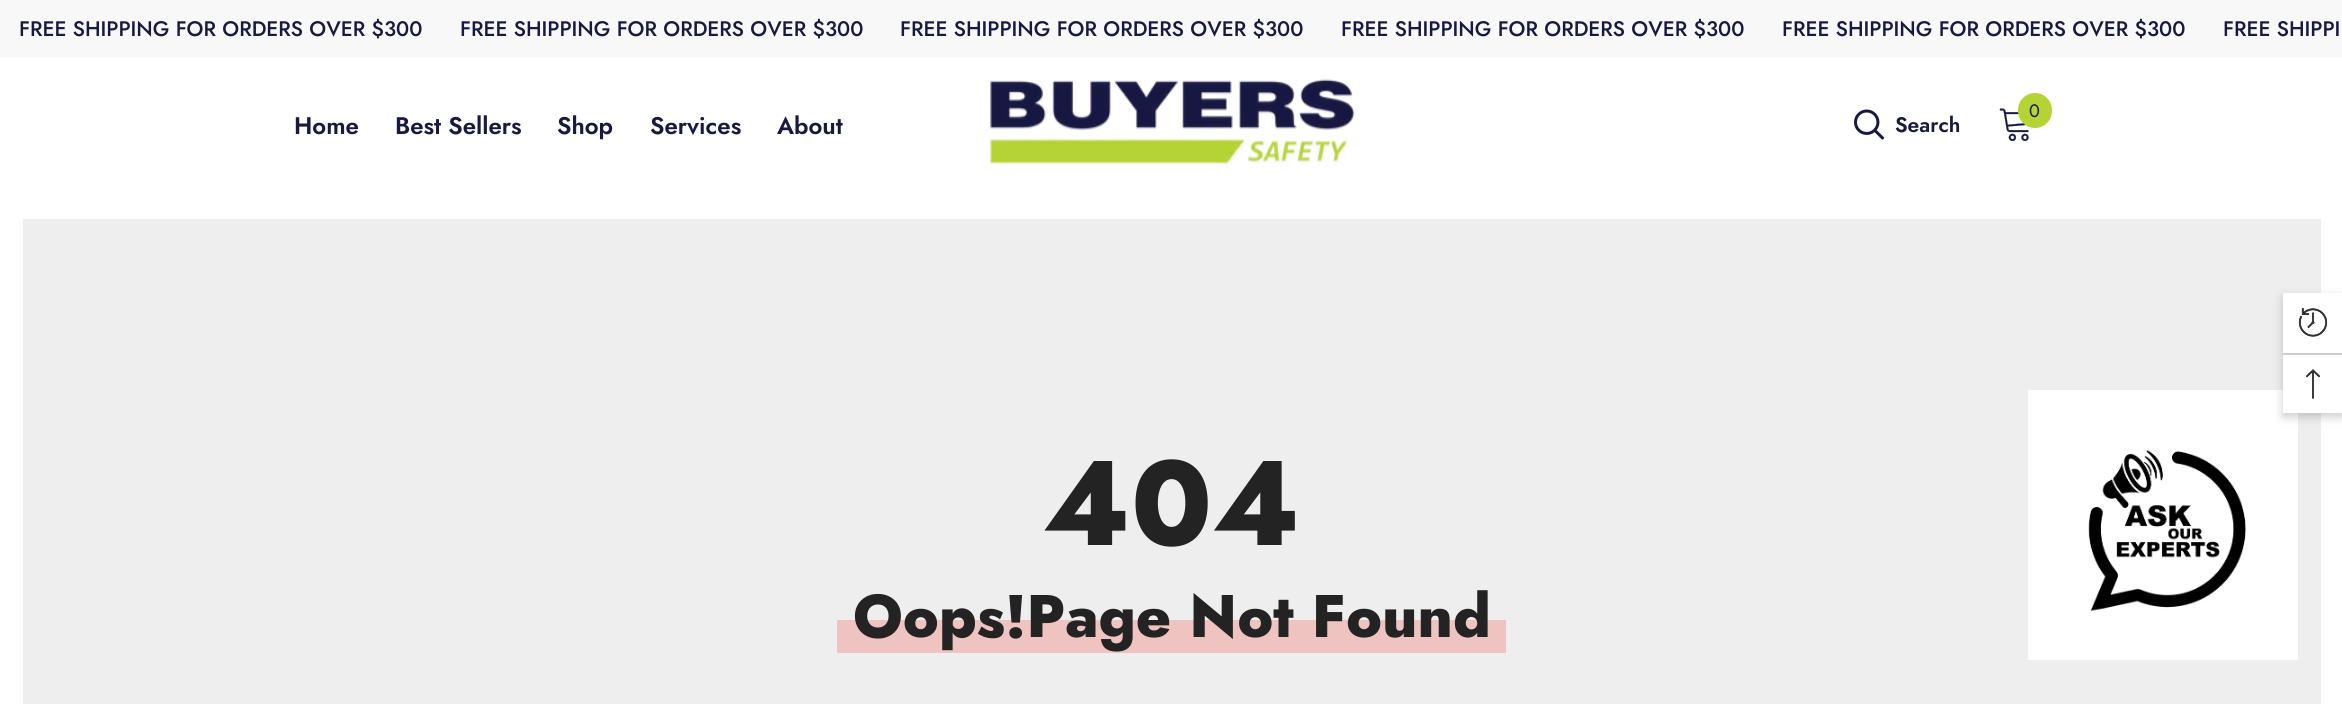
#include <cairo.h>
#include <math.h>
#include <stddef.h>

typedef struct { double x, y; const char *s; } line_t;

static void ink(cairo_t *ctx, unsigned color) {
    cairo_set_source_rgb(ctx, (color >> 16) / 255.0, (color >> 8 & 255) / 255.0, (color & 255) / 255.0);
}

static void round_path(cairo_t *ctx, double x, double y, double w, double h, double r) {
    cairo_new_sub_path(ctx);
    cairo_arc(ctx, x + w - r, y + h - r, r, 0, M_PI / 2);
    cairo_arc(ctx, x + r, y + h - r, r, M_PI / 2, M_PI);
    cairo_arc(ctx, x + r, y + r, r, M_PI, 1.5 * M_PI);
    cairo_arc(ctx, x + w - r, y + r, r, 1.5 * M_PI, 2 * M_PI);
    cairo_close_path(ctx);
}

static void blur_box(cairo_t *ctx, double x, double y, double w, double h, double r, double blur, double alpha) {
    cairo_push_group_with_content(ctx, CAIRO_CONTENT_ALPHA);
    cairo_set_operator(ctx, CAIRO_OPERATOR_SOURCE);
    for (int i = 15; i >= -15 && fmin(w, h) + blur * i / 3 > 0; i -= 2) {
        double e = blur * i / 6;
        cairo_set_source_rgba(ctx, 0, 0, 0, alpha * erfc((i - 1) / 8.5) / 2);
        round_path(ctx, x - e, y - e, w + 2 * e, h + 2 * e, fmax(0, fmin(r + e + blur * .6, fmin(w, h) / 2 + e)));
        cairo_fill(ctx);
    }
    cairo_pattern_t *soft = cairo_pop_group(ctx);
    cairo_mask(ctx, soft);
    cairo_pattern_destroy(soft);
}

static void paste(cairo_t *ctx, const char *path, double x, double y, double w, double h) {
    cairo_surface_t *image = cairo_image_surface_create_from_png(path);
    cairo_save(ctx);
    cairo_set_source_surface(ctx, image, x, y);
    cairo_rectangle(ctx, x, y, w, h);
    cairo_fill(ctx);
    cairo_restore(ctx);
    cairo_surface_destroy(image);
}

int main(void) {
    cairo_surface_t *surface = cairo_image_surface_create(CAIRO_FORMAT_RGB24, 2342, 704);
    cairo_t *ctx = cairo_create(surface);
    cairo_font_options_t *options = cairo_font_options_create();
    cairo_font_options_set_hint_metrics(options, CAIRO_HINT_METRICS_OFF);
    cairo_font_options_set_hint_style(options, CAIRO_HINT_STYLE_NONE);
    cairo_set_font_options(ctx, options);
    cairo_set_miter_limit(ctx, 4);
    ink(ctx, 0xFFFFFF);
    cairo_paint(ctx);
    ink(ctx, 0xF8F8F8);
    cairo_rectangle(ctx, 0, 0, 2342, 57);
    cairo_fill(ctx);
    cairo_select_font_face(ctx, "Jost Medium", CAIRO_FONT_SLANT_NORMAL, CAIRO_FONT_WEIGHT_NORMAL);
    cairo_set_font_size(ctx, 21);
    ink(ctx, 0x171943);
    {
        static const line_t items[] = {
            {19, 36, "FREE SHIPPING FOR ORDERS OVER $300"},
            {460, 36, "FREE SHIPPING FOR ORDERS OVER $300"},
            {900, 36, "FREE SHIPPING FOR ORDERS OVER $300"},
            {1341, 36, "FREE SHIPPING FOR ORDERS OVER $300"},
            {1782, 36, "FREE SHIPPING FOR ORDERS OVER $300"},
            {2223, 36, "FREE SHIPPI"},
        };
        for (size_t i = 0; i < sizeof items / sizeof *items; i++) {
            cairo_move_to(ctx, items[i].x, items[i].y);
            cairo_show_text(ctx, items[i].s);
        }
    }
    cairo_select_font_face(ctx, "Jost SemiBold", CAIRO_FONT_SLANT_NORMAL, CAIRO_FONT_WEIGHT_NORMAL);
    cairo_set_font_size(ctx, 24);
    {
        static const line_t items[] = {
            {294, 134, "Home"},
            {395, 134, "Best Sellers"},
            {557, 134, "Shop"},
            {650, 134, "Services"},
            {777, 134, "About"},
        };
        for (size_t i = 0; i < sizeof items / sizeof *items; i++) {
            cairo_move_to(ctx, items[i].x, items[i].y);
            cairo_show_text(ctx, items[i].s);
        }
    }
    paste(ctx, "media/1.png", 990, 79, 365, 86);
    paste(ctx, "media/2.png", 1999, 108, 30, 33);
    ink(ctx, 0xB5D335);
    round_path(ctx, 2018, 93, 34, 35, 17);
    cairo_fill(ctx);
    cairo_select_font_face(ctx, "Jost", CAIRO_FONT_SLANT_NORMAL, CAIRO_FONT_WEIGHT_NORMAL);
    cairo_set_font_size(ctx, 18);
    ink(ctx, 0x171943);
    cairo_move_to(ctx, 2029, 117);
    cairo_show_text(ctx, "0");
    paste(ctx, "media/3.png", 1854, 109, 30, 31);
    cairo_select_font_face(ctx, "Jost SemiBold", CAIRO_FONT_SLANT_NORMAL, CAIRO_FONT_WEIGHT_NORMAL);
    cairo_set_font_size(ctx, 21);
    cairo_move_to(ctx, 1895, 132);
    cairo_show_text(ctx, "Search");
    ink(ctx, 0xEEEEEE);
    cairo_rectangle(ctx, 23, 219, 2298, 485);
    cairo_fill(ctx);
    cairo_select_font_face(ctx, "Jost ExtraBold", CAIRO_FONT_SLANT_NORMAL, CAIRO_FONT_WEIGHT_NORMAL);
    cairo_set_font_size(ctx, 120);
    ink(ctx, 0x232323);
    cairo_move_to(ctx, 1043, 545);
    cairo_show_text(ctx, "404");
    ink(ctx, 0xEFC3C0);
    cairo_rectangle(ctx, 837, 620, 669, 33);
    cairo_fill(ctx);
    cairo_set_font_size(ctx, 60);
    ink(ctx, 0x232323);
    cairo_move_to(ctx, 853, 637);
    cairo_show_text(ctx, "Oops!Page Not Found");
    paste(ctx, "media/6.png", 2028, 390, 270, 270);
    ink(ctx, 0x000000);
    blur_box(ctx, 2283, 297, 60, 120, 0, 5, 0.2);
    ink(ctx, 0xFFFFFF);
    cairo_rectangle(ctx, 2283, 293, 59, 120);
    cairo_fill(ctx);
    paste(ctx, "media/4.png", 2298, 308, 30, 29);
    ink(ctx, 0xCCCCCC);
    cairo_rectangle(ctx, 2283, 353, 59, 2);
    cairo_fill(ctx);
    paste(ctx, "media/5.png", 2306, 369, 14, 30);
    cairo_surface_write_to_png(surface, "image.png");
    cairo_font_options_destroy(options);
    cairo_destroy(ctx);
    cairo_surface_destroy(surface);
    return 0;
}
